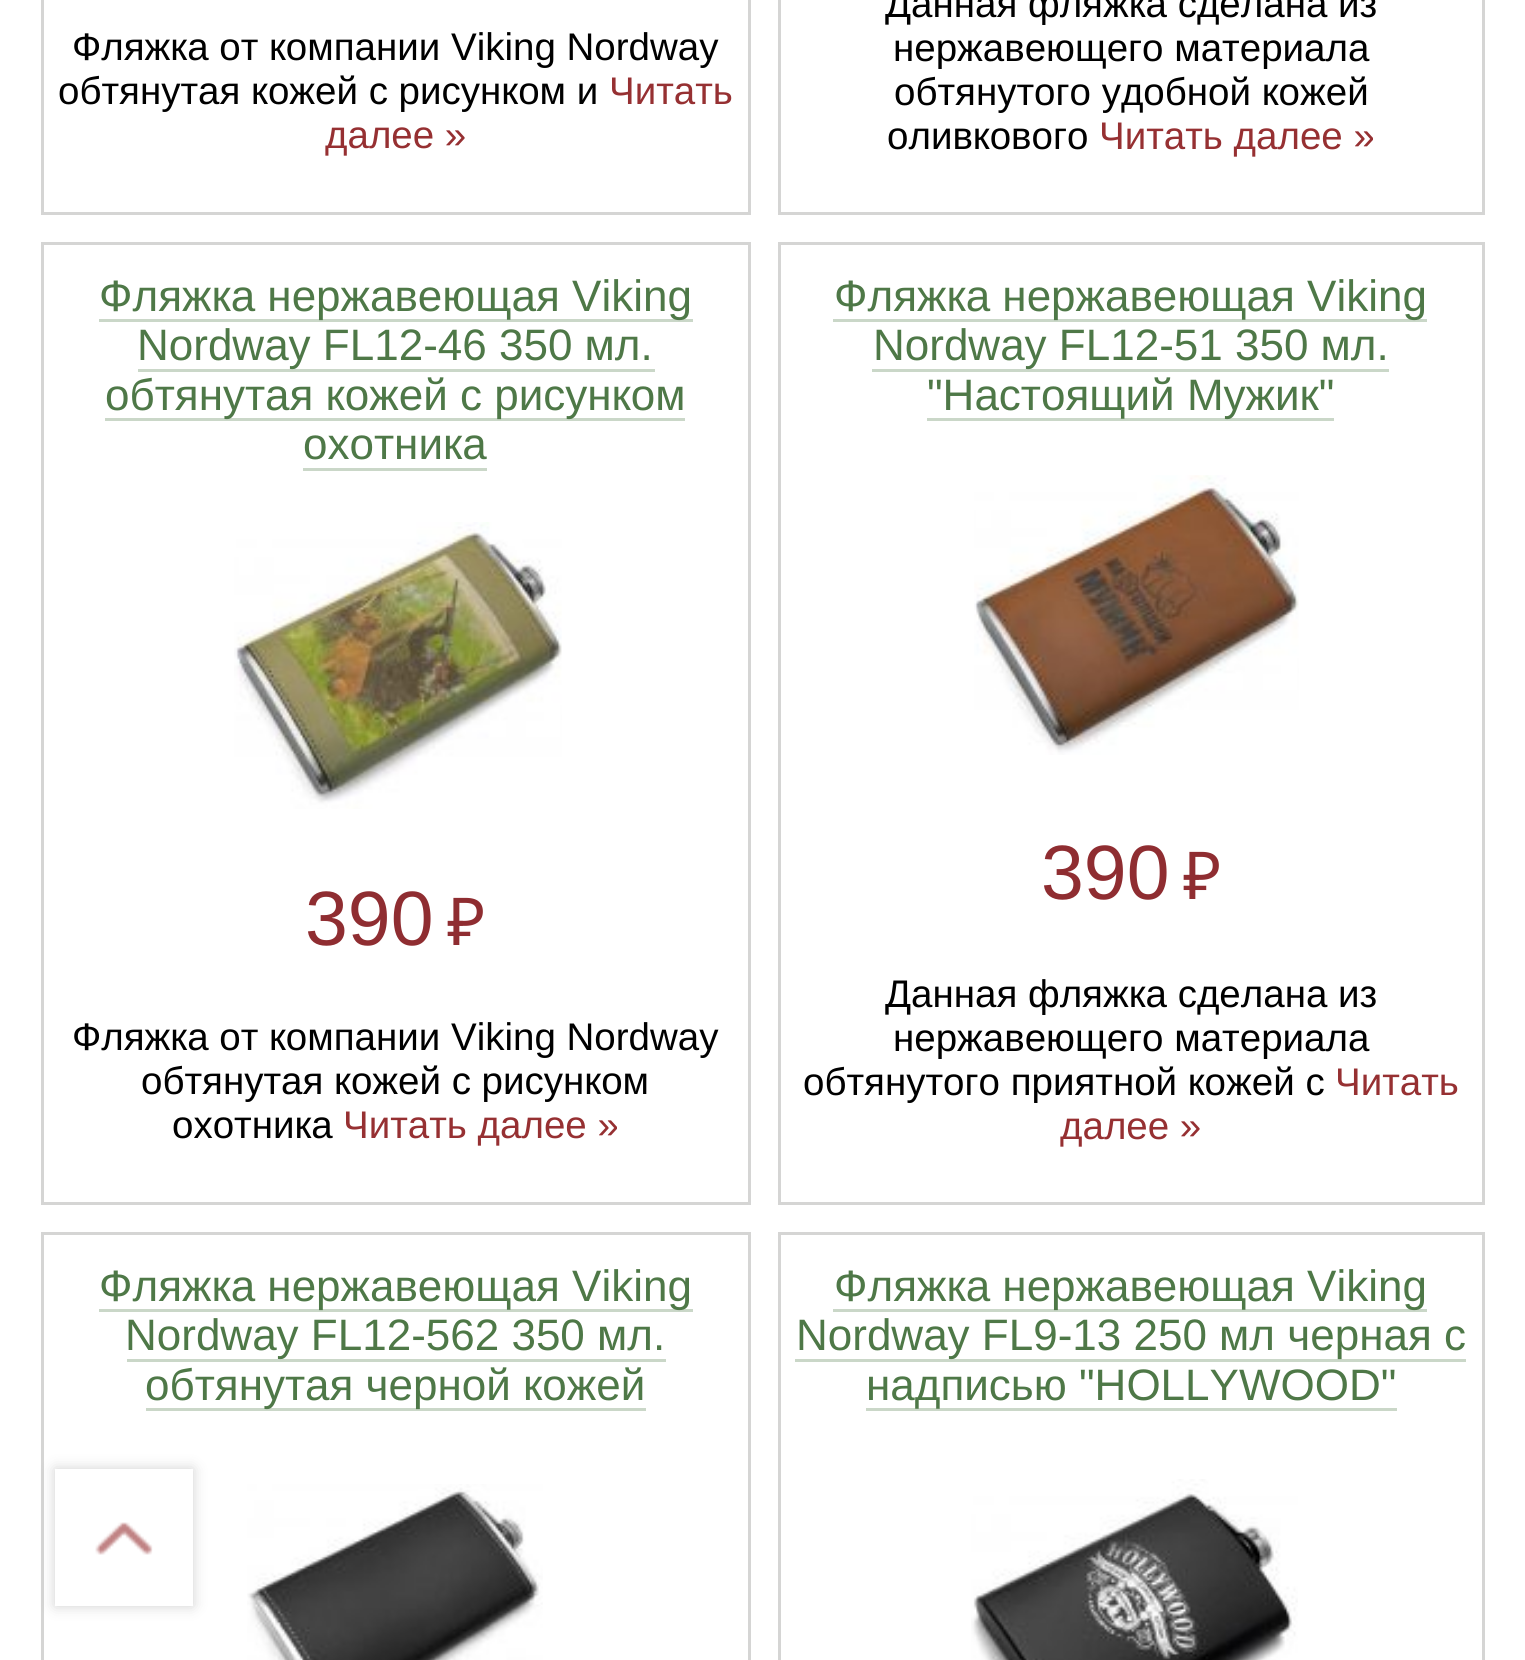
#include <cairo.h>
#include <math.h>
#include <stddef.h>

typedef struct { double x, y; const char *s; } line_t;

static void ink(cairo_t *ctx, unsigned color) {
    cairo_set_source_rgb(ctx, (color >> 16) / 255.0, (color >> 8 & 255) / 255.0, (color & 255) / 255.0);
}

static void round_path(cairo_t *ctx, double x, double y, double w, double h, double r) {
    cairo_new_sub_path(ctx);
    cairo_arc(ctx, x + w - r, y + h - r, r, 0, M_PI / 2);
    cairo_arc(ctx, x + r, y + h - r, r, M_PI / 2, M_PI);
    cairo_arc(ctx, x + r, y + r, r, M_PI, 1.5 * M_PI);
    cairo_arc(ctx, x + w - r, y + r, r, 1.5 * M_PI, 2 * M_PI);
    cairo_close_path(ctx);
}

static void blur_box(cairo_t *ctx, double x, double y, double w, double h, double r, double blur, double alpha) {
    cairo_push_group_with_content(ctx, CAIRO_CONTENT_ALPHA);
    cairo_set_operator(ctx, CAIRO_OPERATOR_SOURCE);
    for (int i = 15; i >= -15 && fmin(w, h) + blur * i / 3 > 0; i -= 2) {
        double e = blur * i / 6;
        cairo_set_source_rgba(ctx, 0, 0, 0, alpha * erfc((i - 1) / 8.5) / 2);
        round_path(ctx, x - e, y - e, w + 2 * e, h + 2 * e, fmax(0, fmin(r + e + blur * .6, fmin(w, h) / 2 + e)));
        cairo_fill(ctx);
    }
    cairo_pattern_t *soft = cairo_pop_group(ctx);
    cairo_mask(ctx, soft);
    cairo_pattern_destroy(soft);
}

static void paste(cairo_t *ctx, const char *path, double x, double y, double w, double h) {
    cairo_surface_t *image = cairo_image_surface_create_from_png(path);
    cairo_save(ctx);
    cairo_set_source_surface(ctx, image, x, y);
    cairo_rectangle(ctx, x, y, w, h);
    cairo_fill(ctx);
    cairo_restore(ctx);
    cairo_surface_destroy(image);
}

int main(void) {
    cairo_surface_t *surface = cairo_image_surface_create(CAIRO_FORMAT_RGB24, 1525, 1660);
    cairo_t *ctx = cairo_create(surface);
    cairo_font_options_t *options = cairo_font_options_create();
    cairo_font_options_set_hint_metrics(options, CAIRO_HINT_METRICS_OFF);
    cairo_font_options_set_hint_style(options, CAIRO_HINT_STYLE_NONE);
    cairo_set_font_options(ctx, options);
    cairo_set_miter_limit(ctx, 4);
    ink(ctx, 0xFFFFFF);
    cairo_paint(ctx);
    cairo_rectangle(ctx, 42.5, -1.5, 707, 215);
    ink(ctx, 0xD5D5D4);
    cairo_set_line_width(ctx, 3);
    cairo_stroke(ctx);
    cairo_select_font_face(ctx, "Liberation Sans", CAIRO_FONT_SLANT_NORMAL, CAIRO_FONT_WEIGHT_NORMAL);
    cairo_set_font_size(ctx, 38.5);
    ink(ctx, 0x000000);
    cairo_move_to(ctx, 72, 60);
    cairo_show_text(ctx, "Фляжка от компании Viking Nordway");
    cairo_move_to(ctx, 58, 104);
    cairo_show_text(ctx, "обтянутая кожей с рисунком и");
    ink(ctx, 0x963032);
    cairo_move_to(ctx, 609, 104);
    cairo_show_text(ctx, "Читать");
    cairo_move_to(ctx, 325, 148);
    cairo_show_text(ctx, "далее »");
    cairo_rectangle(ctx, 779.5, -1.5, 704, 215);
    ink(ctx, 0xD5D5D4);
    cairo_stroke(ctx);
    ink(ctx, 0x000000);
    {
        static const line_t items[] = {
            {885, 17, "Данная фляжка сделана из"},
            {893, 61, "нержавеющего материала"},
            {894, 105, "обтянутого удобной кожей"},
            {887, 149, "оливкового"},
        };
        for (size_t i = 0; i < sizeof items / sizeof *items; i++) {
            cairo_move_to(ctx, items[i].x, items[i].y);
            cairo_show_text(ctx, items[i].s);
        }
    }
    ink(ctx, 0x963032);
    cairo_move_to(ctx, 1099, 149);
    cairo_show_text(ctx, "Читать далее »");
    cairo_rectangle(ctx, 42.5, 243.5, 707, 960);
    ink(ctx, 0xD5D5D4);
    cairo_stroke(ctx);
    ink(ctx, 0xCAD7C8);
    cairo_rectangle(ctx, 99, 319, 594, 3);
    cairo_fill(ctx);
    cairo_set_font_size(ctx, 44);
    ink(ctx, 0x4E7847);
    cairo_move_to(ctx, 99, 311);
    cairo_show_text(ctx, "Фляжка нержавеющая Viking");
    ink(ctx, 0xCAD7C8);
    cairo_rectangle(ctx, 138, 369, 517, 3);
    cairo_fill(ctx);
    ink(ctx, 0x4E7847);
    cairo_move_to(ctx, 137, 360);
    cairo_show_text(ctx, "Nordway FL12-46 350 мл.");
    ink(ctx, 0xCAD7C8);
    cairo_rectangle(ctx, 105, 418, 580, 3);
    cairo_fill(ctx);
    ink(ctx, 0x4E7847);
    cairo_move_to(ctx, 105, 410);
    cairo_show_text(ctx, "обтянутая кожей с рисунком");
    cairo_move_to(ctx, 303, 459);
    cairo_show_text(ctx, "охотника");
    ink(ctx, 0xCAD7C8);
    cairo_rectangle(ctx, 303, 468, 184, 3);
    cairo_fill(ctx);
    paste(ctx, "media/1.png", 234, 522, 328, 287);
    cairo_set_font_size(ctx, 77);
    ink(ctx, 0x8F2D31);
    cairo_move_to(ctx, 305, 945);
    cairo_show_text(ctx, "390");
    cairo_select_font_face(ctx, "Noto Sans", CAIRO_FONT_SLANT_NORMAL, CAIRO_FONT_WEIGHT_NORMAL);
    cairo_set_font_size(ctx, 66);
    cairo_move_to(ctx, 447, 945);
    cairo_show_text(ctx, "₽");
    cairo_select_font_face(ctx, "Liberation Sans", CAIRO_FONT_SLANT_NORMAL, CAIRO_FONT_WEIGHT_NORMAL);
    cairo_set_font_size(ctx, 38.5);
    ink(ctx, 0x000000);
    {
        static const line_t items[] = {
            {72, 1050, "Фляжка от компании Viking Nordway"},
            {141, 1094, "обтянутая кожей с рисунком"},
            {172, 1138, "охотника"},
        };
        for (size_t i = 0; i < sizeof items / sizeof *items; i++) {
            cairo_move_to(ctx, items[i].x, items[i].y);
            cairo_show_text(ctx, items[i].s);
        }
    }
    ink(ctx, 0x963032);
    cairo_move_to(ctx, 343, 1138);
    cairo_show_text(ctx, "Читать далее »");
    cairo_rectangle(ctx, 779.5, 243.5, 704, 960);
    ink(ctx, 0xD5D5D4);
    cairo_stroke(ctx);
    ink(ctx, 0xCAD7C8);
    cairo_rectangle(ctx, 833, 319, 594, 3);
    cairo_fill(ctx);
    cairo_set_font_size(ctx, 44);
    ink(ctx, 0x4E7847);
    cairo_move_to(ctx, 834, 311);
    cairo_show_text(ctx, "Фляжка нержавеющая Viking");
    ink(ctx, 0xCAD7C8);
    cairo_rectangle(ctx, 872, 369, 517, 3);
    cairo_fill(ctx);
    ink(ctx, 0x4E7847);
    cairo_move_to(ctx, 873, 360);
    cairo_show_text(ctx, "Nordway FL12-51 350 мл.");
    ink(ctx, 0xCAD7C8);
    cairo_rectangle(ctx, 927, 418, 407, 3);
    cairo_fill(ctx);
    ink(ctx, 0x4E7847);
    cairo_move_to(ctx, 927, 410);
    cairo_show_text(ctx, "\"Настоящий Мужик\"");
    paste(ctx, "media/2.png", 974, 475, 325, 280);
    cairo_set_font_size(ctx, 77);
    ink(ctx, 0x8F2D31);
    cairo_move_to(ctx, 1041, 899);
    cairo_show_text(ctx, "390");
    cairo_select_font_face(ctx, "Noto Sans", CAIRO_FONT_SLANT_NORMAL, CAIRO_FONT_WEIGHT_NORMAL);
    cairo_set_font_size(ctx, 66);
    cairo_move_to(ctx, 1183, 899);
    cairo_show_text(ctx, "₽");
    cairo_select_font_face(ctx, "Liberation Sans", CAIRO_FONT_SLANT_NORMAL, CAIRO_FONT_WEIGHT_NORMAL);
    cairo_set_font_size(ctx, 38.5);
    ink(ctx, 0x000000);
    {
        static const line_t items[] = {
            {885, 1007, "Данная фляжка сделана из"},
            {893, 1051, "нержавеющего материала"},
            {803, 1095, "обтянутого приятной кожей с"},
        };
        for (size_t i = 0; i < sizeof items / sizeof *items; i++) {
            cairo_move_to(ctx, items[i].x, items[i].y);
            cairo_show_text(ctx, items[i].s);
        }
    }
    ink(ctx, 0x963032);
    cairo_move_to(ctx, 1335, 1095);
    cairo_show_text(ctx, "Читать");
    cairo_move_to(ctx, 1060, 1139);
    cairo_show_text(ctx, "далее »");
    cairo_rectangle(ctx, 42.5, 1233.5, 707, 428);
    ink(ctx, 0xD5D5D4);
    cairo_stroke(ctx);
    ink(ctx, 0xCAD7C8);
    cairo_rectangle(ctx, 99, 1309, 594, 3);
    cairo_fill(ctx);
    cairo_set_font_size(ctx, 44);
    ink(ctx, 0x4E7847);
    cairo_move_to(ctx, 99, 1301);
    cairo_show_text(ctx, "Фляжка нержавеющая Viking");
    ink(ctx, 0xCAD7C8);
    cairo_rectangle(ctx, 127, 1359, 539, 3);
    cairo_fill(ctx);
    ink(ctx, 0x4E7847);
    cairo_move_to(ctx, 125, 1350);
    cairo_show_text(ctx, "Nordway FL12-562 350 мл.");
    ink(ctx, 0xCAD7C8);
    cairo_rectangle(ctx, 146, 1408, 500, 3);
    cairo_fill(ctx);
    ink(ctx, 0x4E7847);
    cairo_move_to(ctx, 145, 1400);
    cairo_show_text(ctx, "обтянутая черной кожей");
    paste(ctx, "media/3.png", 247, 1484, 296, 176);
    cairo_rectangle(ctx, 779.5, 1233.5, 704, 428);
    ink(ctx, 0xD5D5D4);
    cairo_stroke(ctx);
    ink(ctx, 0xCAD7C8);
    cairo_rectangle(ctx, 833, 1309, 594, 3);
    cairo_fill(ctx);
    ink(ctx, 0x4E7847);
    cairo_move_to(ctx, 834, 1301);
    cairo_show_text(ctx, "Фляжка нержавеющая Viking");
    ink(ctx, 0xCAD7C8);
    cairo_rectangle(ctx, 795, 1359, 671, 3);
    cairo_fill(ctx);
    ink(ctx, 0x4E7847);
    cairo_move_to(ctx, 796, 1350);
    cairo_show_text(ctx, "Nordway FL9-13 250 мл черная с");
    ink(ctx, 0xCAD7C8);
    cairo_rectangle(ctx, 866, 1408, 531, 3);
    cairo_fill(ctx);
    ink(ctx, 0x4E7847);
    cairo_move_to(ctx, 866, 1400);
    cairo_show_text(ctx, "надписью \"HOLLYWOOD\"");
    paste(ctx, "media/4.png", 971, 1479, 327, 181);
    ink(ctx, 0x000000);
    blur_box(ctx, 55, 1469, 138, 137, 0, 7, 0.18);
    ink(ctx, 0xFFFFFF);
    cairo_rectangle(ctx, 55, 1469, 138, 137);
    cairo_fill(ctx);
    paste(ctx, "media/5.png", 95, 1522, 58, 33);
    cairo_surface_write_to_png(surface, "image.png");
    cairo_font_options_destroy(options);
    cairo_destroy(ctx);
    cairo_surface_destroy(surface);
    return 0;
}
